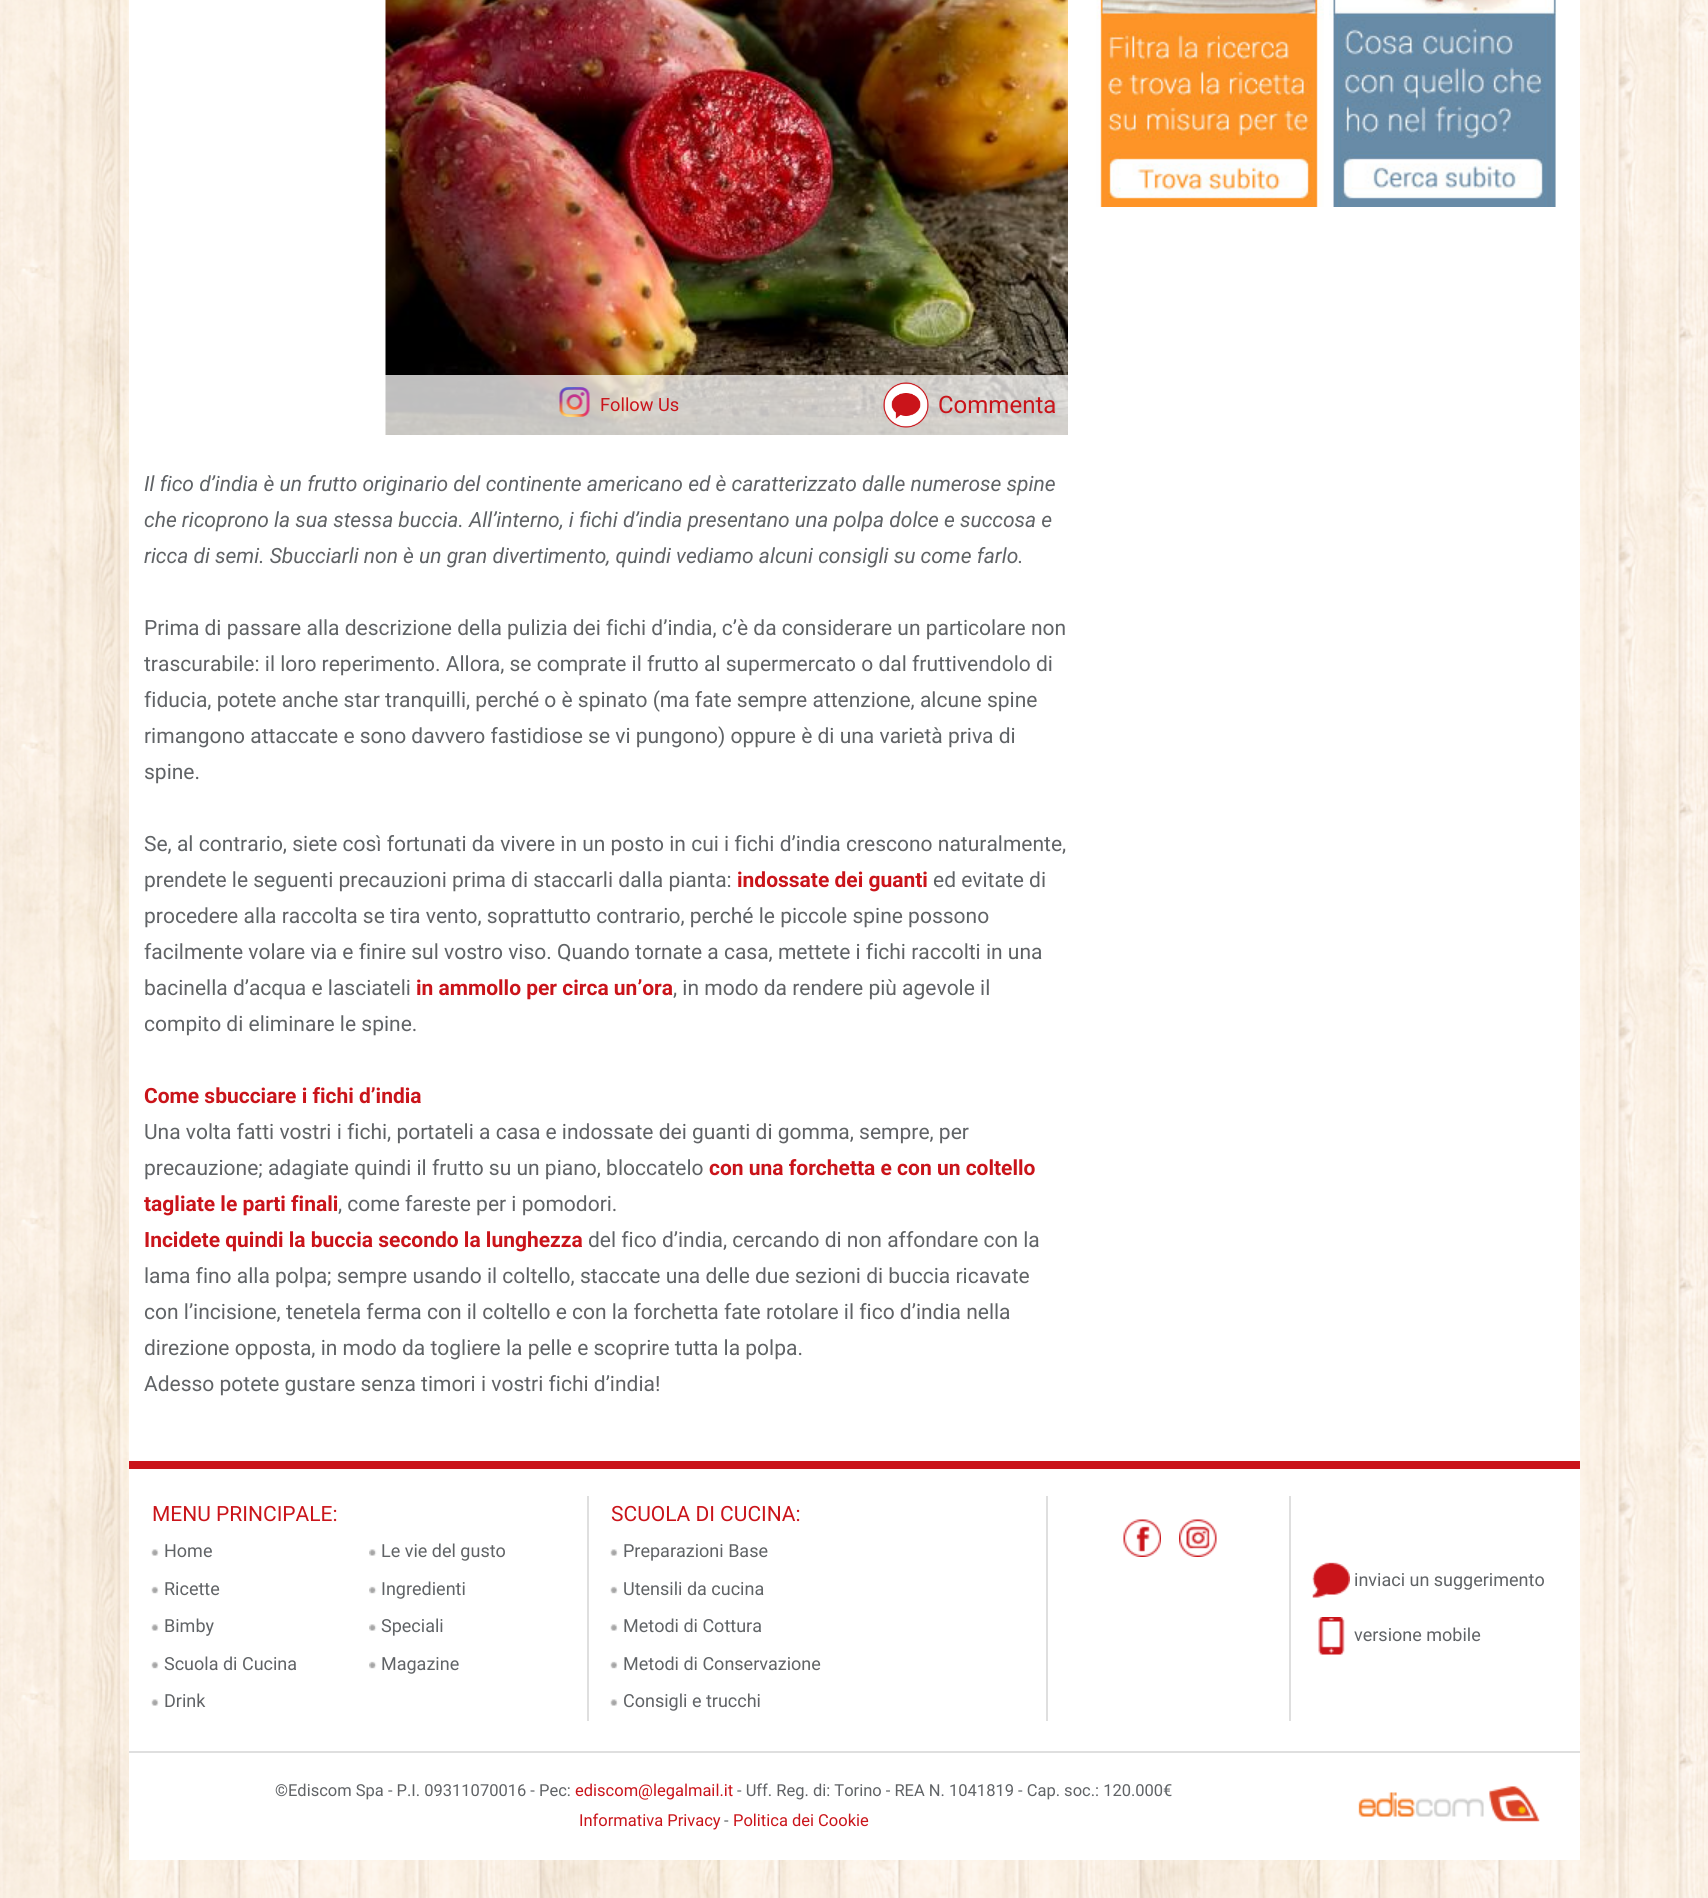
#include <cairo.h>
#include <math.h>
#include <stddef.h>

typedef struct { double x, y; const char *s; } line_t;
typedef struct { double x, y, w, h; unsigned color; } box_t;

static void ink(cairo_t *ctx, unsigned color) {
    cairo_set_source_rgb(ctx, (color >> 16) / 255.0, (color >> 8 & 255) / 255.0, (color & 255) / 255.0);
}

static void paste(cairo_t *ctx, const char *path, double x, double y, double w, double h) {
    cairo_surface_t *image = cairo_image_surface_create_from_png(path);
    cairo_save(ctx);
    cairo_set_source_surface(ctx, image, x, y);
    cairo_rectangle(ctx, x, y, w, h);
    cairo_fill(ctx);
    cairo_restore(ctx);
    cairo_surface_destroy(image);
}

int main(void) {
    cairo_surface_t *surface = cairo_image_surface_create(CAIRO_FORMAT_RGB24, 1708, 1898);
    cairo_t *ctx = cairo_create(surface);
    cairo_font_options_t *options = cairo_font_options_create();
    cairo_font_options_set_hint_metrics(options, CAIRO_HINT_METRICS_OFF);
    cairo_font_options_set_hint_style(options, CAIRO_HINT_STYLE_NONE);
    cairo_set_font_options(ctx, options);
    cairo_set_miter_limit(ctx, 4);
    ink(ctx, 0xFFFFFF);
    cairo_paint(ctx);
    paste(ctx, "media/1.png", 0, 0, 1708, 1898);
    ink(ctx, 0xFFFFFF);
    cairo_rectangle(ctx, 129, 0, 1451, 1860);
    cairo_fill(ctx);
    paste(ctx, "media/2.png", 1096, 0, 228, 207);
    paste(ctx, "media/3.png", 1329, 0, 228, 207);
    paste(ctx, "media/4.png", 385, 0, 683, 435);
    cairo_set_source_rgba(ctx, 1, 1, 1, 0.75);
    cairo_rectangle(ctx, 385, 375, 683, 60);
    cairo_fill(ctx);
    paste(ctx, "media/5.png", 559, 387, 31, 30);
    cairo_select_font_face(ctx, "Roboto", CAIRO_FONT_SLANT_NORMAL, CAIRO_FONT_WEIGHT_NORMAL);
    cairo_set_font_size(ctx, 18.25);
    ink(ctx, 0xCA141A);
    cairo_move_to(ctx, 600, 411);
    cairo_show_text(ctx, "Follow Us");
    paste(ctx, "media/6.png", 883, 382, 46, 46);
    cairo_set_font_size(ctx, 24);
    cairo_move_to(ctx, 938, 413);
    cairo_show_text(ctx, "Commenta");
    cairo_select_font_face(ctx, "Roboto", CAIRO_FONT_SLANT_ITALIC, CAIRO_FONT_WEIGHT_NORMAL);
    cairo_set_font_size(ctx, 21);
    ink(ctx, 0x606366);
    {
        static const line_t items[] = {
            {144, 491, "Il fico d’india è un frutto originario del continente americano ed è caratterizzato dalle numerose spine"},
            {144, 527, "che ricoprono la sua stessa buccia. All’interno, i fichi d’india presentano una polpa dolce e succosa e"},
            {144, 563, "ricca di semi. Sbucciarli non è un gran divertimento, quindi vediamo alcuni consigli su come farlo."},
        };
        for (size_t i = 0; i < sizeof items / sizeof *items; i++) {
            cairo_move_to(ctx, items[i].x, items[i].y);
            cairo_show_text(ctx, items[i].s);
        }
    }
    cairo_select_font_face(ctx, "Roboto", CAIRO_FONT_SLANT_NORMAL, CAIRO_FONT_WEIGHT_NORMAL);
    {
        static const line_t items[] = {
            {144, 635, "Prima di passare alla descrizione della pulizia dei fichi d’india, c’è da considerare un particolare non"},
            {144, 671, "trascurabile: il loro reperimento. Allora, se comprate il frutto al supermercato o dal fruttivendolo di"},
            {144, 707, "fiducia, potete anche star tranquilli, perché o è spinato (ma fate sempre attenzione, alcune spine"},
            {144, 743, "rimangono attaccate e sono davvero fastidiose se vi pungono) oppure è di una varietà priva di"},
            {144, 779, "spine."},
            {144, 851, "Se, al contrario, siete così fortunati da vivere in un posto in cui i fichi d’india crescono naturalmente,"},
            {144, 887, "prendete le seguenti precauzioni prima di staccarli dalla pianta:"},
        };
        for (size_t i = 0; i < sizeof items / sizeof *items; i++) {
            cairo_move_to(ctx, items[i].x, items[i].y);
            cairo_show_text(ctx, items[i].s);
        }
    }
    cairo_select_font_face(ctx, "Roboto", CAIRO_FONT_SLANT_NORMAL, CAIRO_FONT_WEIGHT_BOLD);
    ink(ctx, 0xCA141A);
    cairo_move_to(ctx, 737, 887);
    cairo_show_text(ctx, "indossate dei guanti");
    cairo_select_font_face(ctx, "Roboto", CAIRO_FONT_SLANT_NORMAL, CAIRO_FONT_WEIGHT_NORMAL);
    ink(ctx, 0x606366);
    {
        static const line_t items[] = {
            {933, 887, "ed evitate di"},
            {144, 923, "procedere alla raccolta se tira vento, soprattutto contrario, perché le piccole spine possono"},
            {144, 959, "facilmente volare via e finire sul vostro viso. Quando tornate a casa, mettete i fichi raccolti in una"},
            {144, 995, "bacinella d’acqua e lasciateli"},
        };
        for (size_t i = 0; i < sizeof items / sizeof *items; i++) {
            cairo_move_to(ctx, items[i].x, items[i].y);
            cairo_show_text(ctx, items[i].s);
        }
    }
    cairo_select_font_face(ctx, "Roboto", CAIRO_FONT_SLANT_NORMAL, CAIRO_FONT_WEIGHT_BOLD);
    ink(ctx, 0xCA141A);
    cairo_move_to(ctx, 416, 995);
    cairo_show_text(ctx, "in ammollo per circa un’ora");
    cairo_select_font_face(ctx, "Roboto", CAIRO_FONT_SLANT_NORMAL, CAIRO_FONT_WEIGHT_NORMAL);
    ink(ctx, 0x606366);
    cairo_move_to(ctx, 673, 995);
    cairo_show_text(ctx, ", in modo da rendere più agevole il");
    cairo_move_to(ctx, 144, 1031);
    cairo_show_text(ctx, "compito di eliminare le spine.");
    cairo_select_font_face(ctx, "Roboto", CAIRO_FONT_SLANT_NORMAL, CAIRO_FONT_WEIGHT_BOLD);
    ink(ctx, 0xCA141A);
    cairo_move_to(ctx, 144, 1103);
    cairo_show_text(ctx, "Come sbucciare i fichi d’india");
    cairo_select_font_face(ctx, "Roboto", CAIRO_FONT_SLANT_NORMAL, CAIRO_FONT_WEIGHT_NORMAL);
    ink(ctx, 0x606366);
    cairo_move_to(ctx, 144, 1139);
    cairo_show_text(ctx, "Una volta fatti vostri i fichi, portateli a casa e indossate dei guanti di gomma, sempre, per");
    cairo_move_to(ctx, 144, 1175);
    cairo_show_text(ctx, "precauzione; adagiate quindi il frutto su un piano, bloccatelo");
    cairo_select_font_face(ctx, "Roboto", CAIRO_FONT_SLANT_NORMAL, CAIRO_FONT_WEIGHT_BOLD);
    ink(ctx, 0xCA141A);
    cairo_move_to(ctx, 709, 1175);
    cairo_show_text(ctx, "con una forchetta e con un coltello");
    cairo_move_to(ctx, 144, 1211);
    cairo_show_text(ctx, "tagliate le parti finali");
    cairo_select_font_face(ctx, "Roboto", CAIRO_FONT_SLANT_NORMAL, CAIRO_FONT_WEIGHT_NORMAL);
    ink(ctx, 0x606366);
    cairo_move_to(ctx, 338, 1211);
    cairo_show_text(ctx, ", come fareste per i pomodori.");
    cairo_select_font_face(ctx, "Roboto", CAIRO_FONT_SLANT_NORMAL, CAIRO_FONT_WEIGHT_BOLD);
    ink(ctx, 0xCA141A);
    cairo_move_to(ctx, 144, 1247);
    cairo_show_text(ctx, "Incidete quindi la buccia secondo la lunghezza");
    cairo_select_font_face(ctx, "Roboto", CAIRO_FONT_SLANT_NORMAL, CAIRO_FONT_WEIGHT_NORMAL);
    ink(ctx, 0x606366);
    {
        static const line_t items[] = {
            {588, 1247, "del fico d’india, cercando di non affondare con la"},
            {144, 1283, "lama fino alla polpa; sempre usando il coltello, staccate una delle due sezioni di buccia ricavate"},
            {144, 1319, "con l’incisione, tenetela ferma con il coltello e con la forchetta fate rotolare il fico d’india nella"},
            {144, 1355, "direzione opposta, in modo da togliere la pelle e scoprire tutta la polpa."},
            {144, 1391, "Adesso potete gustare senza timori i vostri fichi d’india!"},
        };
        for (size_t i = 0; i < sizeof items / sizeof *items; i++) {
            cairo_move_to(ctx, items[i].x, items[i].y);
            cairo_show_text(ctx, items[i].s);
        }
    }
    {
        static const box_t items[] = {
            {129, 1461, 1451, 8, 0xCA141A},
            {129, 1751, 1451, 2, 0xDFDFDF},
            {587, 1496, 2, 225, 0xDFDFDF},
        };
        for (size_t i = 0; i < sizeof items / sizeof *items; i++) {
            ink(ctx, items[i].color);
            cairo_rectangle(ctx, items[i].x, items[i].y, items[i].w, items[i].h);
            cairo_fill(ctx);
        }
    }
    ink(ctx, 0xCA141A);
    cairo_move_to(ctx, 152, 1521);
    cairo_show_text(ctx, "MENU PRINCIPALE:");
    paste(ctx, "media/7.png", 151, 1549, 8, 7);
    cairo_set_font_size(ctx, 18);
    ink(ctx, 0x606366);
    cairo_move_to(ctx, 164, 1557);
    cairo_show_text(ctx, "Home");
    paste(ctx, "media/8.png", 151, 1586, 8, 8);
    cairo_move_to(ctx, 164, 1595);
    cairo_show_text(ctx, "Ricette");
    paste(ctx, "media/7.png", 151, 1624, 8, 7);
    cairo_move_to(ctx, 164, 1632);
    cairo_show_text(ctx, "Bimby");
    paste(ctx, "media/8.png", 151, 1661, 8, 8);
    cairo_move_to(ctx, 164, 1670);
    cairo_show_text(ctx, "Scuola di Cucina");
    paste(ctx, "media/7.png", 151, 1699, 8, 7);
    cairo_move_to(ctx, 164, 1707);
    cairo_show_text(ctx, "Drink");
    paste(ctx, "media/9.png", 369, 1549, 8, 7);
    cairo_move_to(ctx, 381, 1557);
    cairo_show_text(ctx, "Le vie del gusto");
    paste(ctx, "media/10.png", 369, 1586, 8, 8);
    cairo_move_to(ctx, 381, 1595);
    cairo_show_text(ctx, "Ingredienti");
    paste(ctx, "media/9.png", 369, 1624, 8, 7);
    cairo_move_to(ctx, 381, 1632);
    cairo_show_text(ctx, "Speciali");
    paste(ctx, "media/10.png", 369, 1661, 8, 8);
    cairo_move_to(ctx, 381, 1670);
    cairo_show_text(ctx, "Magazine");
    ink(ctx, 0xDFDFDF);
    cairo_rectangle(ctx, 1046, 1496, 2, 225);
    cairo_fill(ctx);
    cairo_set_font_size(ctx, 21);
    ink(ctx, 0xCA141A);
    cairo_move_to(ctx, 611, 1521);
    cairo_show_text(ctx, "SCUOLA DI CUCINA:");
    paste(ctx, "media/11.png", 610, 1549, 8, 7);
    cairo_set_font_size(ctx, 18);
    ink(ctx, 0x606366);
    cairo_move_to(ctx, 623, 1557);
    cairo_show_text(ctx, "Preparazioni Base");
    paste(ctx, "media/12.png", 610, 1586, 8, 8);
    cairo_move_to(ctx, 623, 1595);
    cairo_show_text(ctx, "Utensili da cucina");
    paste(ctx, "media/11.png", 610, 1624, 8, 7);
    cairo_move_to(ctx, 623, 1632);
    cairo_show_text(ctx, "Metodi di Cottura");
    paste(ctx, "media/12.png", 610, 1661, 8, 8);
    cairo_move_to(ctx, 623, 1670);
    cairo_show_text(ctx, "Metodi di Conservazione");
    paste(ctx, "media/11.png", 610, 1699, 8, 7);
    cairo_move_to(ctx, 623, 1707);
    cairo_show_text(ctx, "Consigli e trucchi");
    ink(ctx, 0xDFDFDF);
    cairo_rectangle(ctx, 1289, 1496, 2, 225);
    cairo_fill(ctx);
    paste(ctx, "media/13.png", 1123, 1519, 38, 38);
    paste(ctx, "media/14.png", 1179, 1519, 38, 38);
    paste(ctx, "media/15.png", 1312, 1562, 38, 36);
    ink(ctx, 0x606366);
    cairo_move_to(ctx, 1354, 1586);
    cairo_show_text(ctx, "inviaci un suggerimento");
    paste(ctx, "media/16.png", 1318, 1617, 27, 38);
    cairo_move_to(ctx, 1354, 1641);
    cairo_show_text(ctx, "versione mobile");
    cairo_set_font_size(ctx, 16.5);
    cairo_move_to(ctx, 275, 1796);
    cairo_show_text(ctx, "©Ediscom Spa - P.I. 09311070016 - Pec:");
    ink(ctx, 0xCA141A);
    cairo_move_to(ctx, 575, 1796);
    cairo_show_text(ctx, "ediscom@legalmail.it");
    ink(ctx, 0x606366);
    cairo_move_to(ctx, 737, 1796);
    cairo_show_text(ctx, "- Uff. Reg. di: Torino - REA N. 1041819 - Cap. soc.: 120.000€");
    ink(ctx, 0xCA141A);
    cairo_move_to(ctx, 579, 1826);
    cairo_show_text(ctx, "Informativa Privacy");
    ink(ctx, 0x606366);
    cairo_move_to(ctx, 724, 1826);
    cairo_show_text(ctx, "-");
    ink(ctx, 0xCA141A);
    cairo_move_to(ctx, 733, 1826);
    cairo_show_text(ctx, "Politica dei Cookie");
    paste(ctx, "media/17.png", 1358, 1786, 182, 36);
    cairo_surface_write_to_png(surface, "image.png");
    cairo_font_options_destroy(options);
    cairo_destroy(ctx);
    cairo_surface_destroy(surface);
    return 0;
}
